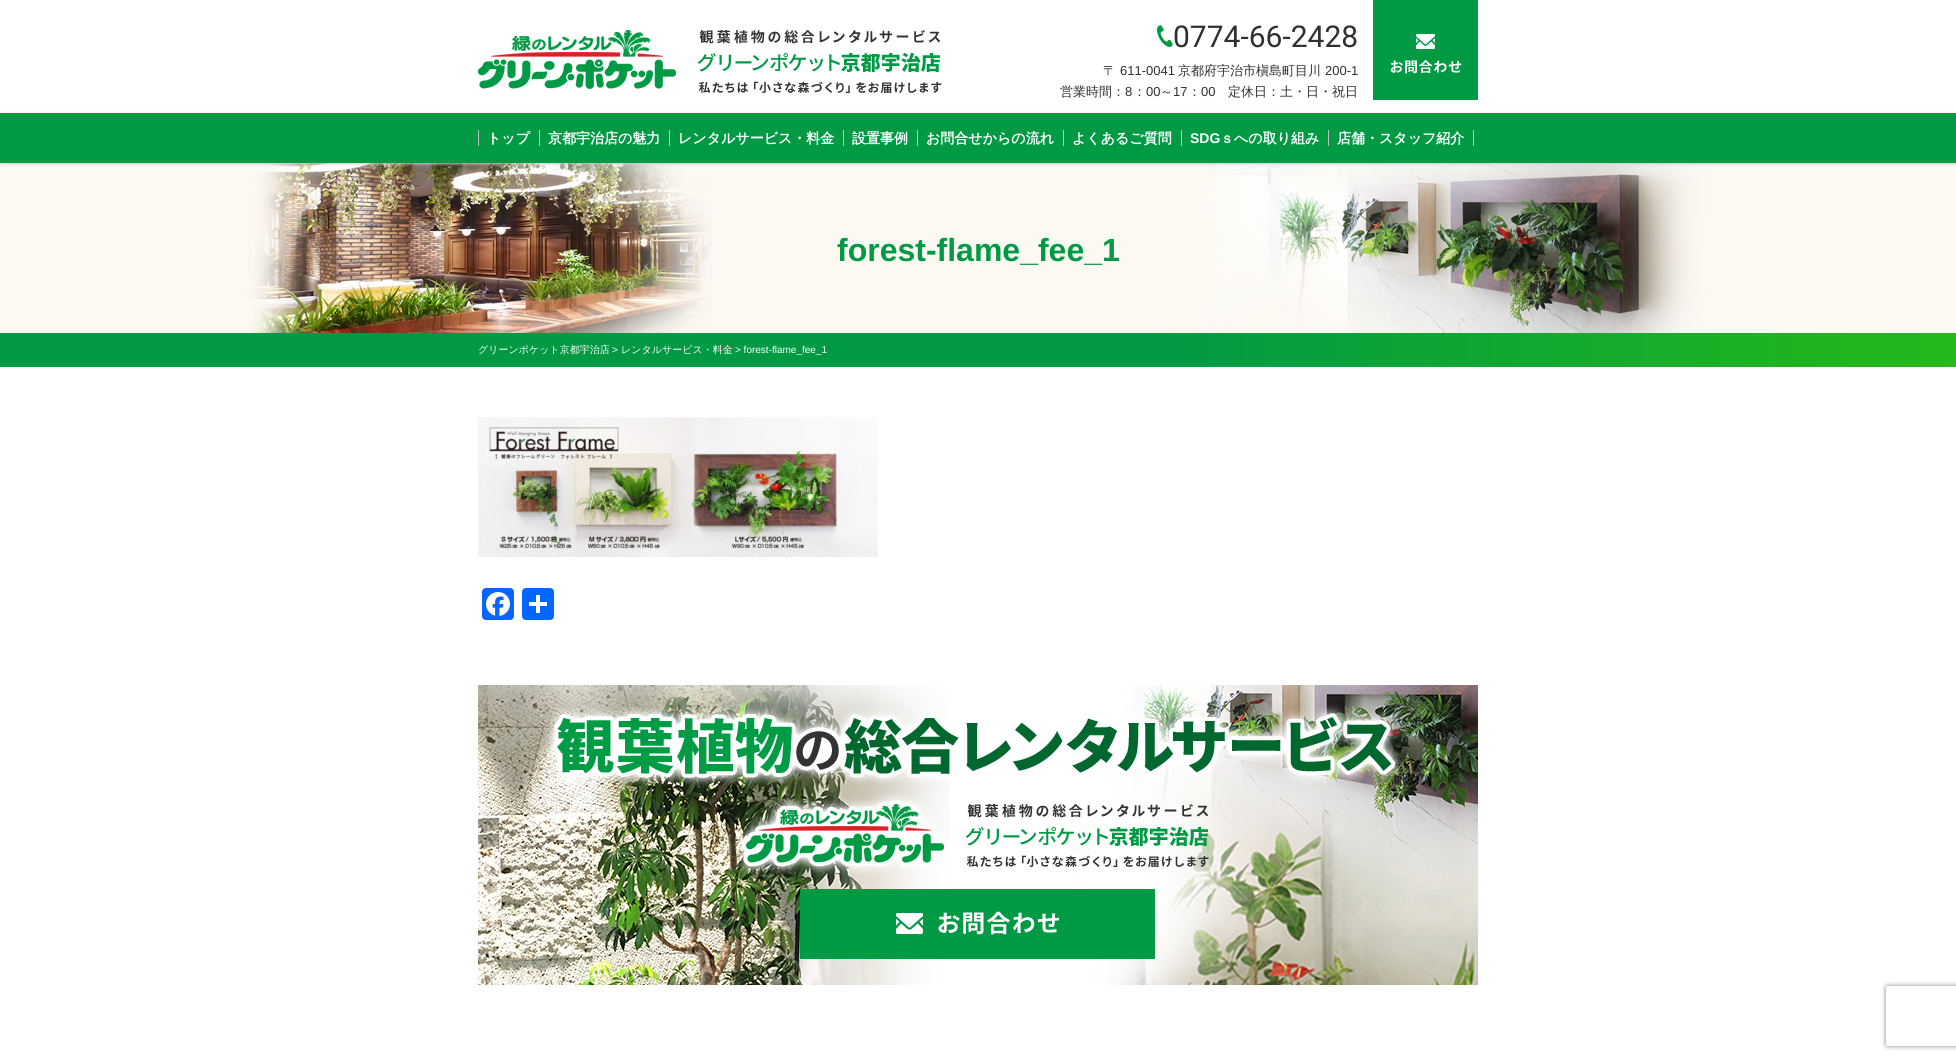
#include <cairo.h>
#include <math.h>
#include <stddef.h>


static void ink(cairo_t *ctx, unsigned color) {
    cairo_set_source_rgb(ctx, (color >> 16) / 255.0, (color >> 8 & 255) / 255.0, (color & 255) / 255.0);
}

static void round_path(cairo_t *ctx, double x, double y, double w, double h, double r) {
    cairo_new_sub_path(ctx);
    cairo_arc(ctx, x + w - r, y + h - r, r, 0, M_PI / 2);
    cairo_arc(ctx, x + r, y + h - r, r, M_PI / 2, M_PI);
    cairo_arc(ctx, x + r, y + r, r, M_PI, 1.5 * M_PI);
    cairo_arc(ctx, x + w - r, y + r, r, 1.5 * M_PI, 2 * M_PI);
    cairo_close_path(ctx);
}

static void blur_box(cairo_t *ctx, double x, double y, double w, double h, double r, double blur, double alpha) {
    cairo_push_group_with_content(ctx, CAIRO_CONTENT_ALPHA);
    cairo_set_operator(ctx, CAIRO_OPERATOR_SOURCE);
    for (int i = 15; i >= -15 && fmin(w, h) + blur * i / 3 > 0; i -= 2) {
        double e = blur * i / 6;
        cairo_set_source_rgba(ctx, 0, 0, 0, alpha * erfc((i - 1) / 8.5) / 2);
        round_path(ctx, x - e, y - e, w + 2 * e, h + 2 * e, fmax(0, fmin(r + e + blur * .6, fmin(w, h) / 2 + e)));
        cairo_fill(ctx);
    }
    cairo_pattern_t *soft = cairo_pop_group(ctx);
    cairo_mask(ctx, soft);
    cairo_pattern_destroy(soft);
}

static void paste(cairo_t *ctx, const char *path, double x, double y, double w, double h) {
    cairo_surface_t *image = cairo_image_surface_create_from_png(path);
    cairo_save(ctx);
    cairo_set_source_surface(ctx, image, x, y);
    cairo_rectangle(ctx, x, y, w, h);
    cairo_fill(ctx);
    cairo_restore(ctx);
    cairo_surface_destroy(image);
}

int main(void) {
    cairo_surface_t *surface = cairo_image_surface_create(CAIRO_FORMAT_RGB24, 1956, 1060);
    cairo_t *ctx = cairo_create(surface);
    cairo_font_options_t *options = cairo_font_options_create();
    cairo_font_options_set_hint_metrics(options, CAIRO_HINT_METRICS_OFF);
    cairo_font_options_set_hint_style(options, CAIRO_HINT_STYLE_NONE);
    cairo_set_font_options(ctx, options);
    cairo_set_miter_limit(ctx, 4);
    cairo_pattern_t *gradient;
    ink(ctx, 0xFFFFFF);
    cairo_paint(ctx);
    paste(ctx, "media/1.png", 478, 30, 464, 63);
    paste(ctx, "media/2.png", 1157, 25, 16, 22);
    cairo_select_font_face(ctx, "Roboto", CAIRO_FONT_SLANT_NORMAL, CAIRO_FONT_WEIGHT_NORMAL);
    cairo_set_font_size(ctx, 30);
    ink(ctx, 0x303030);
    cairo_move_to(ctx, 1173, 47);
    cairo_show_text(ctx, "0774-66-2428");
    cairo_select_font_face(ctx, "WenQuanYi Zen Hei Medium", CAIRO_FONT_SLANT_NORMAL, CAIRO_FONT_WEIGHT_NORMAL);
    cairo_set_font_size(ctx, 13);
    cairo_move_to(ctx, 1103, 75);
    cairo_show_text(ctx, "〒");
    cairo_select_font_face(ctx, "Liberation Sans", CAIRO_FONT_SLANT_NORMAL, CAIRO_FONT_WEIGHT_NORMAL);
    cairo_move_to(ctx, 1120, 75);
    cairo_show_text(ctx, "611-0041");
    cairo_select_font_face(ctx, "WenQuanYi Zen Hei Medium", CAIRO_FONT_SLANT_NORMAL, CAIRO_FONT_WEIGHT_NORMAL);
    cairo_move_to(ctx, 1178, 75);
    cairo_show_text(ctx, "京都府宇治市槇島町目川");
    cairo_select_font_face(ctx, "Liberation Sans", CAIRO_FONT_SLANT_NORMAL, CAIRO_FONT_WEIGHT_NORMAL);
    cairo_move_to(ctx, 1325, 75);
    cairo_show_text(ctx, "200-1");
    cairo_select_font_face(ctx, "WenQuanYi Zen Hei Medium", CAIRO_FONT_SLANT_NORMAL, CAIRO_FONT_WEIGHT_NORMAL);
    cairo_move_to(ctx, 1060, 96);
    cairo_show_text(ctx, "営業時間：");
    cairo_select_font_face(ctx, "Liberation Sans", CAIRO_FONT_SLANT_NORMAL, CAIRO_FONT_WEIGHT_NORMAL);
    cairo_move_to(ctx, 1125, 96);
    cairo_show_text(ctx, "8");
    cairo_select_font_face(ctx, "WenQuanYi Zen Hei Medium", CAIRO_FONT_SLANT_NORMAL, CAIRO_FONT_WEIGHT_NORMAL);
    cairo_move_to(ctx, 1133, 96);
    cairo_show_text(ctx, "：");
    cairo_select_font_face(ctx, "Liberation Sans", CAIRO_FONT_SLANT_NORMAL, CAIRO_FONT_WEIGHT_NORMAL);
    cairo_move_to(ctx, 1146, 96);
    cairo_show_text(ctx, "00");
    cairo_select_font_face(ctx, "WenQuanYi Zen Hei Medium", CAIRO_FONT_SLANT_NORMAL, CAIRO_FONT_WEIGHT_NORMAL);
    cairo_move_to(ctx, 1160, 96);
    cairo_show_text(ctx, "～");
    cairo_select_font_face(ctx, "Liberation Sans", CAIRO_FONT_SLANT_NORMAL, CAIRO_FONT_WEIGHT_NORMAL);
    cairo_move_to(ctx, 1173, 96);
    cairo_show_text(ctx, "17");
    cairo_select_font_face(ctx, "WenQuanYi Zen Hei Medium", CAIRO_FONT_SLANT_NORMAL, CAIRO_FONT_WEIGHT_NORMAL);
    cairo_move_to(ctx, 1188, 96);
    cairo_show_text(ctx, "：");
    cairo_select_font_face(ctx, "Liberation Sans", CAIRO_FONT_SLANT_NORMAL, CAIRO_FONT_WEIGHT_NORMAL);
    cairo_move_to(ctx, 1201, 96);
    cairo_show_text(ctx, "00");
    cairo_select_font_face(ctx, "WenQuanYi Zen Hei Medium", CAIRO_FONT_SLANT_NORMAL, CAIRO_FONT_WEIGHT_NORMAL);
    cairo_move_to(ctx, 1228, 96);
    cairo_show_text(ctx, "定休日：土・日・祝日");
    paste(ctx, "media/3.png", 1373, 0, 105, 100);
    paste(ctx, "media/4.png", 0, 163, 1956, 170);
    ink(ctx, 0xCACACA);
    blur_box(ctx, 1, 114, 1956, 50, 0, 1.5, 1);
    ink(ctx, 0x009944);
    cairo_rectangle(ctx, 0, 113, 1956, 50);
    cairo_fill(ctx);
    ink(ctx, 0xBFBFBF);
    cairo_rectangle(ctx, 478, 130, 1, 16);
    cairo_fill(ctx);
    cairo_select_font_face(ctx, "WenQuanYi Zen Hei", CAIRO_FONT_SLANT_NORMAL, CAIRO_FONT_WEIGHT_BOLD);
    cairo_set_font_size(ctx, 14);
    ink(ctx, 0xFFFFFF);
    cairo_move_to(ctx, 487, 143);
    cairo_show_text(ctx, "トップ");
    ink(ctx, 0xBFBFBF);
    cairo_rectangle(ctx, 539, 130, 1, 16);
    cairo_fill(ctx);
    ink(ctx, 0xFFFFFF);
    cairo_move_to(ctx, 548, 143);
    cairo_show_text(ctx, "京都宇治店の魅力");
    ink(ctx, 0xBFBFBF);
    cairo_rectangle(ctx, 669, 130, 1, 16);
    cairo_fill(ctx);
    ink(ctx, 0xFFFFFF);
    cairo_move_to(ctx, 678, 143);
    cairo_show_text(ctx, "レンタルサービス・料金");
    ink(ctx, 0xBFBFBF);
    cairo_rectangle(ctx, 843, 130, 1, 16);
    cairo_fill(ctx);
    ink(ctx, 0xFFFFFF);
    cairo_move_to(ctx, 852, 143);
    cairo_show_text(ctx, "設置事例");
    ink(ctx, 0xBFBFBF);
    cairo_rectangle(ctx, 917, 130, 1, 16);
    cairo_fill(ctx);
    ink(ctx, 0xFFFFFF);
    cairo_move_to(ctx, 926, 143);
    cairo_show_text(ctx, "お問合せからの流れ");
    ink(ctx, 0xBFBFBF);
    cairo_rectangle(ctx, 1063, 130, 1, 16);
    cairo_fill(ctx);
    ink(ctx, 0xFFFFFF);
    cairo_move_to(ctx, 1072, 143);
    cairo_show_text(ctx, "よくあるご質問");
    ink(ctx, 0xBFBFBF);
    cairo_rectangle(ctx, 1181, 130, 1, 16);
    cairo_fill(ctx);
    cairo_select_font_face(ctx, "Liberation Sans", CAIRO_FONT_SLANT_NORMAL, CAIRO_FONT_WEIGHT_BOLD);
    ink(ctx, 0xFFFFFF);
    cairo_move_to(ctx, 1190, 143);
    cairo_show_text(ctx, "SDG");
    cairo_select_font_face(ctx, "WenQuanYi Zen Hei", CAIRO_FONT_SLANT_NORMAL, CAIRO_FONT_WEIGHT_BOLD);
    cairo_move_to(ctx, 1220, 143);
    cairo_show_text(ctx, "ｓへの取り組み");
    ink(ctx, 0xBFBFBF);
    cairo_rectangle(ctx, 1328, 130, 1, 16);
    cairo_fill(ctx);
    ink(ctx, 0xFFFFFF);
    cairo_move_to(ctx, 1337, 143);
    cairo_show_text(ctx, "店舗・スタッフ紹介");
    ink(ctx, 0xBFBFBF);
    cairo_rectangle(ctx, 1473, 130, 1, 16);
    cairo_fill(ctx);
    cairo_select_font_face(ctx, "Liberation Sans", CAIRO_FONT_SLANT_NORMAL, CAIRO_FONT_WEIGHT_BOLD);
    cairo_set_font_size(ctx, 32);
    ink(ctx, 0x009944);
    cairo_move_to(ctx, 837, 261);
    cairo_show_text(ctx, "forest-flame_fee_1");
    gradient = cairo_pattern_create_linear(0, 350, 1956, 350);
    cairo_pattern_add_color_stop_rgba(gradient, 0, 0.004, 0.6, 0.267, 1);
    cairo_pattern_add_color_stop_rgba(gradient, 0.59, 0.004, 0.6, 0.267, 1);
    cairo_pattern_add_color_stop_rgba(gradient, 1, 0.149, 0.725, 0.102, 1);
    cairo_set_source(ctx, gradient);
    cairo_pattern_destroy(gradient);
    cairo_rectangle(ctx, 0, 333, 1956, 34);
    cairo_fill(ctx);
    cairo_select_font_face(ctx, "WenQuanYi Zen Hei Medium", CAIRO_FONT_SLANT_NORMAL, CAIRO_FONT_WEIGHT_NORMAL);
    cairo_set_font_size(ctx, 10);
    ink(ctx, 0xFFFFFF);
    cairo_move_to(ctx, 478, 353);
    cairo_show_text(ctx, "グリーンポケット京都宇治店");
    cairo_select_font_face(ctx, "Liberation Sans", CAIRO_FONT_SLANT_NORMAL, CAIRO_FONT_WEIGHT_NORMAL);
    cairo_move_to(ctx, 612, 353);
    cairo_show_text(ctx, ">");
    cairo_select_font_face(ctx, "WenQuanYi Zen Hei Medium", CAIRO_FONT_SLANT_NORMAL, CAIRO_FONT_WEIGHT_NORMAL);
    cairo_move_to(ctx, 621, 353);
    cairo_show_text(ctx, "レンタルサービス・料金");
    cairo_select_font_face(ctx, "Liberation Sans", CAIRO_FONT_SLANT_NORMAL, CAIRO_FONT_WEIGHT_NORMAL);
    cairo_move_to(ctx, 735, 353);
    cairo_show_text(ctx, "> forest-flame_fee_1");
    paste(ctx, "media/5.png", 478, 417, 400, 140);
    ink(ctx, 0x0866FF);
    round_path(ctx, 482, 588, 32, 32, 4);
    cairo_fill(ctx);
    paste(ctx, "media/6.png", 486, 592, 24, 24);
    ink(ctx, 0x0166FF);
    round_path(ctx, 522, 588, 32, 32, 4);
    cairo_fill(ctx);
    ink(ctx, 0xFFFFFF);
    cairo_rectangle(ctx, 536, 595, 4, 18);
    cairo_fill(ctx);
    cairo_rectangle(ctx, 529, 602, 18, 4);
    cairo_fill(ctx);
    paste(ctx, "media/7.png", 478, 685, 1000, 300);
    cairo_save(ctx);
    cairo_set_fill_rule(ctx, CAIRO_FILL_RULE_EVEN_ODD);
    cairo_new_path(ctx);
    cairo_move_to(ctx, 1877, 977);
    cairo_line_to(ctx, 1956, 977);
    cairo_line_to(ctx, 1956, 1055);
    cairo_line_to(ctx, 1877, 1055);
    cairo_close_path(ctx);
    cairo_move_to(ctx, 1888, 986);
    cairo_line_to(ctx, 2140, 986);
    cairo_curve_to(ctx, 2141, 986, 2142, 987, 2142, 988);
    cairo_line_to(ctx, 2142, 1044);
    cairo_curve_to(ctx, 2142, 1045, 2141, 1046, 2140, 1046);
    cairo_line_to(ctx, 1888, 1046);
    cairo_curve_to(ctx, 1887, 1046, 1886, 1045, 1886, 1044);
    cairo_line_to(ctx, 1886, 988);
    cairo_curve_to(ctx, 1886, 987, 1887, 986, 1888, 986);
    cairo_close_path(ctx);
    cairo_clip(ctx);
    ink(ctx, 0x808080);
    blur_box(ctx, 1886, 986, 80, 60, 2, 2.5, 1);
    cairo_restore(ctx);
    cairo_surface_write_to_png(surface, "image.png");
    cairo_font_options_destroy(options);
    cairo_destroy(ctx);
    cairo_surface_destroy(surface);
    return 0;
}
